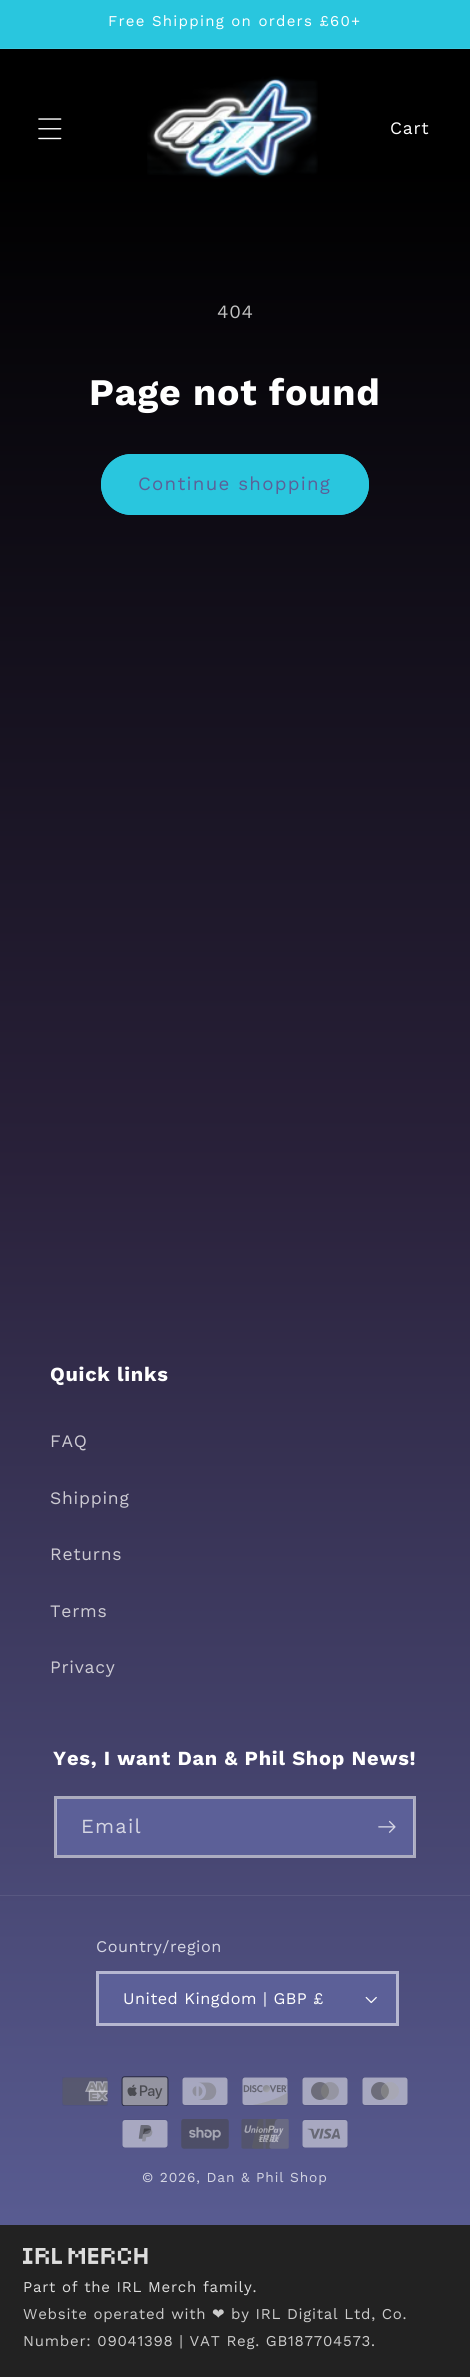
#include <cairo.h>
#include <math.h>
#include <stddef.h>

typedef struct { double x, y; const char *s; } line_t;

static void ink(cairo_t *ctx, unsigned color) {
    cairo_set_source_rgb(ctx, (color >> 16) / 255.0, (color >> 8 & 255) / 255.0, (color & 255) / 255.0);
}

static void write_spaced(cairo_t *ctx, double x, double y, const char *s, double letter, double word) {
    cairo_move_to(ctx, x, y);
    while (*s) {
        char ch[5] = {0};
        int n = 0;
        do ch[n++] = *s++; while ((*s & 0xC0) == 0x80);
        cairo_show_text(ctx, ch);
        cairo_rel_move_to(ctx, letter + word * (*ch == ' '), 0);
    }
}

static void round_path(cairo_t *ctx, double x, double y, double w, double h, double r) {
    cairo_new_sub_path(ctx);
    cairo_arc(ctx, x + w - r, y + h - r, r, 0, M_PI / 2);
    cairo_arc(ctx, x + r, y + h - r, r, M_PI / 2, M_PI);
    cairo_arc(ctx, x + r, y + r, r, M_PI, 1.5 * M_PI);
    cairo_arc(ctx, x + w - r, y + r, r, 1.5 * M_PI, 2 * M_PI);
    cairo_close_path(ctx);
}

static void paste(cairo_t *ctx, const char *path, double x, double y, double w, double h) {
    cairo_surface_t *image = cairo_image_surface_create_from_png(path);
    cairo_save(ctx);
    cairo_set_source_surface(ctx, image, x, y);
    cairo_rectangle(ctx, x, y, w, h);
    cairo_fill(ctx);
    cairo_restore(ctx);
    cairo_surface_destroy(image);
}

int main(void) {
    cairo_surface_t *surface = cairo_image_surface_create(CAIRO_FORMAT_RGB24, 470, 2377);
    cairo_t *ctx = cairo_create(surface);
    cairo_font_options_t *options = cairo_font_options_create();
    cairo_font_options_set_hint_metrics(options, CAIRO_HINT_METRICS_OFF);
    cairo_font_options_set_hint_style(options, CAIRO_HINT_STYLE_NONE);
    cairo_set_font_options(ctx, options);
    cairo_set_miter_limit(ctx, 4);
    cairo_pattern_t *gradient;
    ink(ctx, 0xFFFFFF);
    cairo_paint(ctx);
    gradient = cairo_pattern_create_linear(235, 0, 235, 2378);
    cairo_pattern_add_color_stop_rgba(gradient, 0.07, 0, 0, 0, 1);
    cairo_pattern_add_color_stop_rgba(gradient, 0.49, 0.161, 0.129, 0.227, 1);
    cairo_pattern_add_color_stop_rgba(gradient, 0.97, 0.361, 0.376, 0.596, 1);
    cairo_pattern_add_color_stop_rgba(gradient, 1, 0.184, 0.471, 0.518, 1);
    cairo_set_source(ctx, gradient);
    cairo_pattern_destroy(gradient);
    cairo_rectangle(ctx, 0, 49, 470, 2176);
    cairo_fill(ctx);
    ink(ctx, 0x29C6DE);
    cairo_rectangle(ctx, 0, 0, 470, 48);
    cairo_fill(ctx);
    ink(ctx, 0x3ACBE1);
    cairo_rectangle(ctx, 0, 48, 470, 1);
    cairo_fill(ctx);
    cairo_select_font_face(ctx, "Work Sans", CAIRO_FONT_SLANT_NORMAL, CAIRO_FONT_WEIGHT_NORMAL);
    cairo_set_font_size(ctx, 15);
    ink(ctx, 0xFFFFFF);
    write_spaced(ctx, 108, 26, "Free Shipping on orders £60+", 1.25, 0);
    paste(ctx, "media/1.png", 38, 118, 24, 22);
    paste(ctx, "media/2.png", 147, 76, 171, 103);
    cairo_set_font_size(ctx, 17.5);
    write_spaced(ctx, 390, 134, "Cart", 0.75, 0);
    cairo_set_font_size(ctx, 18.75);
    ink(ctx, 0xC1C1C1);
    write_spaced(ctx, 217, 318, "404", 0.75, 0);
    cairo_select_font_face(ctx, "Work Sans", CAIRO_FONT_SLANT_NORMAL, CAIRO_FONT_WEIGHT_BOLD);
    cairo_set_font_size(ctx, 37.5);
    ink(ctx, 0xFFFFFF);
    write_spaced(ctx, 89, 405, "Page not found", 0.75, 0);
    ink(ctx, 0x29C6DE);
    round_path(ctx, 101, 454, 268, 61, 30.5);
    cairo_fill(ctx);
    round_path(ctx, 102.5, 455.5, 265, 58, 29);
    cairo_set_line_width(ctx, 3);
    cairo_stroke(ctx);
    cairo_select_font_face(ctx, "Work Sans", CAIRO_FONT_SLANT_NORMAL, CAIRO_FONT_WEIGHT_NORMAL);
    cairo_set_font_size(ctx, 18.75);
    ink(ctx, 0x5C6098);
    write_spaced(ctx, 138, 490, "Continue shopping", 1.25, 0);
    cairo_select_font_face(ctx, "Work Sans", CAIRO_FONT_SLANT_NORMAL, CAIRO_FONT_WEIGHT_BOLD);
    cairo_set_font_size(ctx, 20);
    ink(ctx, 0xFFFFFF);
    write_spaced(ctx, 50, 1381, "Quick links", 0.75, 0);
    cairo_select_font_face(ctx, "Work Sans", CAIRO_FONT_SLANT_NORMAL, CAIRO_FONT_WEIGHT_NORMAL);
    cairo_set_font_size(ctx, 17.5);
    ink(ctx, 0xCDCBD3);
    {
        static const line_t items[] = {
            {50, 1447, "FAQ"},
            {50, 1504, "Shipping"},
            {50, 1560, "Returns"},
            {50, 1617, "Terms"},
            {50, 1673, "Privacy"},
        };
        for (size_t i = 0; i < sizeof items / sizeof *items; i++) {
            write_spaced(ctx, items[i].x, items[i].y, items[i].s, 0.75, 0);
        }
    }
    cairo_select_font_face(ctx, "Work Sans", CAIRO_FONT_SLANT_NORMAL, CAIRO_FONT_WEIGHT_BOLD);
    cairo_set_font_size(ctx, 20);
    ink(ctx, 0xFFFFFF);
    write_spaced(ctx, 53, 1765, "Yes, I want Dan & Phil Shop News!", 0.75, 0);
    ink(ctx, 0x5C6098);
    cairo_rectangle(ctx, 56, 1799, 358, 56);
    cairo_fill(ctx);
    cairo_rectangle(ctx, 55.5, 1797.5, 359, 59);
    cairo_set_source_rgba(ctx, 1, 1, 1, 0.55);
    cairo_stroke(ctx);
    cairo_select_font_face(ctx, "Work Sans", CAIRO_FONT_SLANT_NORMAL, CAIRO_FONT_WEIGHT_NORMAL);
    ink(ctx, 0xD5D6E3);
    write_spaced(ctx, 81, 1833, "Email", 1.25, 0);
    paste(ctx, "media/3.png", 378, 1820, 18, 13);
    ink(ctx, 0x585881);
    cairo_rectangle(ctx, 0, 1895, 470, 1);
    cairo_fill(ctx);
    cairo_set_font_size(ctx, 16.25);
    ink(ctx, 0xD5D6E3);
    write_spaced(ctx, 96, 1952, "Country/region", 0.5, 0);
    ink(ctx, 0x5C6098);
    cairo_rectangle(ctx, 99, 1974, 297, 49);
    cairo_fill(ctx);
    paste(ctx, "media/4.png", 365, 1996, 12, 8);
    cairo_rectangle(ctx, 97.5, 1972.5, 300, 52);
    ink(ctx, 0xB6B7D1);
    cairo_stroke(ctx);
    ink(ctx, 0xFFFFFF);
    write_spaced(ctx, 123, 2004, "United Kingdom | GBP £", 0.5, 0);
    paste(ctx, "media/5.png", 62, 2077, 46, 29);
    paste(ctx, "media/6.png", 121, 2076, 48, 30);
    paste(ctx, "media/7.png", 182, 2077, 46, 29);
    paste(ctx, "media/8.png", 242, 2077, 46, 29);
    paste(ctx, "media/9.png", 302, 2077, 46, 29);
    paste(ctx, "media/10.png", 362, 2077, 46, 29);
    paste(ctx, "media/11.png", 122, 2119, 46, 29);
    paste(ctx, "media/12.png", 181, 2119, 48, 30);
    paste(ctx, "media/13.png", 241, 2119, 48, 30);
    paste(ctx, "media/14.png", 302, 2119, 46, 29);
    cairo_set_font_size(ctx, 13.75);
    ink(ctx, 0xD5D6E3);
    write_spaced(ctx, 142, 2182, "© 2026, Dan & Phil Shop", 0.9, 0);
    ink(ctx, 0x222222);
    cairo_rectangle(ctx, 0, 2225, 470, 152);
    cairo_fill(ctx);
    paste(ctx, "media/15.png", 23, 2248, 125, 16);
    cairo_set_font_size(ctx, 15);
    ink(ctx, 0xDDDDDD);
    write_spaced(ctx, 23, 2292, "Part of the IRL Merch family.", 0.75, 0);
    ink(ctx, 0xCCCCCC);
    write_spaced(ctx, 23, 2319, "Website operated with", 0.75, 0);
    cairo_select_font_face(ctx, "DejaVu Sans", CAIRO_FONT_SLANT_NORMAL, CAIRO_FONT_WEIGHT_NORMAL);
    write_spaced(ctx, 212, 2319, "❤", 0.75, 0);
    cairo_select_font_face(ctx, "Work Sans", CAIRO_FONT_SLANT_NORMAL, CAIRO_FONT_WEIGHT_NORMAL);
    write_spaced(ctx, 231, 2319, "by IRL Digital Ltd, Co.", 0.75, 0);
    write_spaced(ctx, 23, 2346, "Number: 09041398 | VAT Reg. GB187704573.", 0.75, 0);
    cairo_surface_write_to_png(surface, "image.png");
    cairo_font_options_destroy(options);
    cairo_destroy(ctx);
    cairo_surface_destroy(surface);
    return 0;
}
